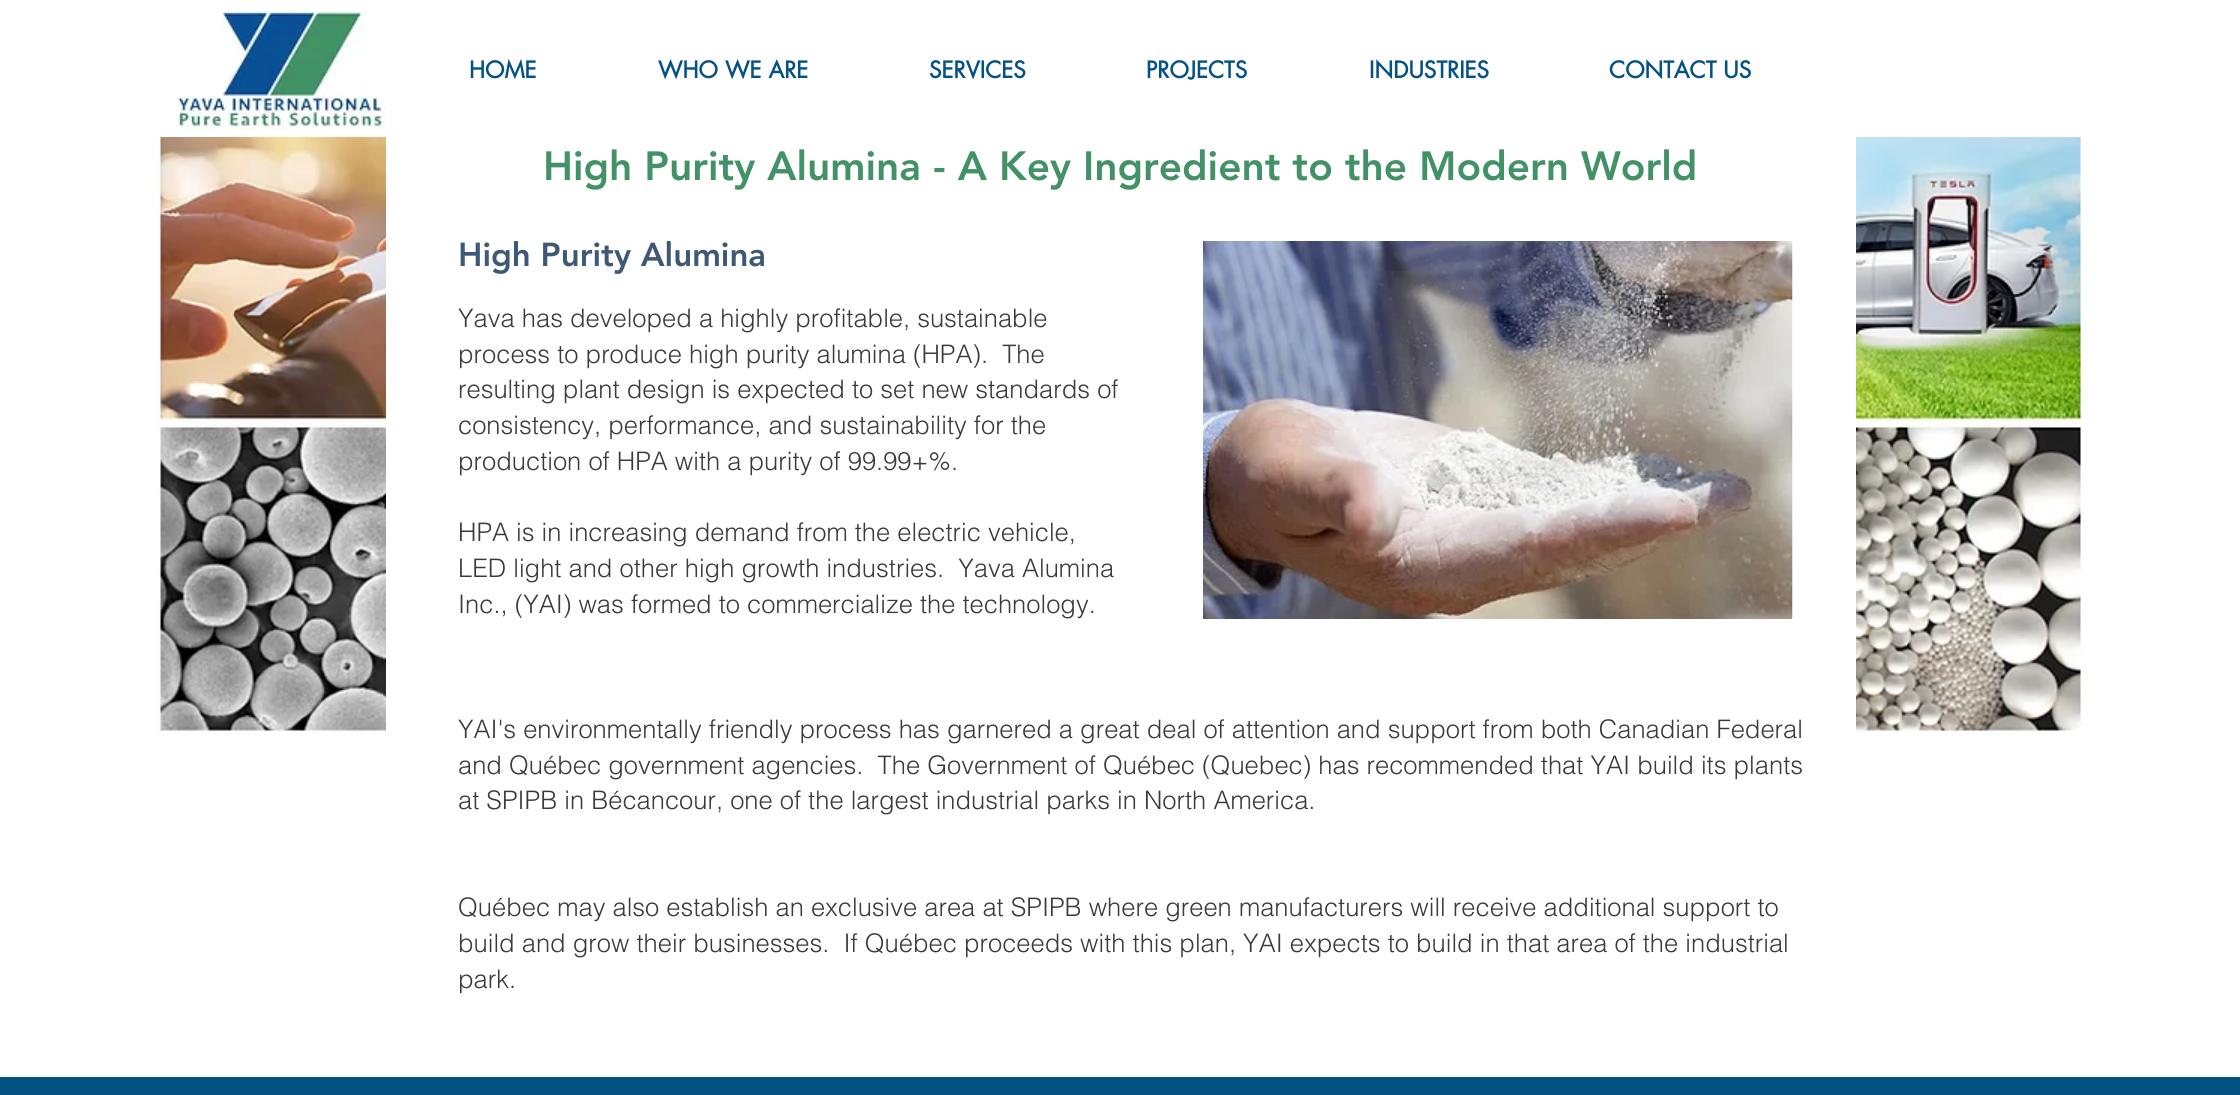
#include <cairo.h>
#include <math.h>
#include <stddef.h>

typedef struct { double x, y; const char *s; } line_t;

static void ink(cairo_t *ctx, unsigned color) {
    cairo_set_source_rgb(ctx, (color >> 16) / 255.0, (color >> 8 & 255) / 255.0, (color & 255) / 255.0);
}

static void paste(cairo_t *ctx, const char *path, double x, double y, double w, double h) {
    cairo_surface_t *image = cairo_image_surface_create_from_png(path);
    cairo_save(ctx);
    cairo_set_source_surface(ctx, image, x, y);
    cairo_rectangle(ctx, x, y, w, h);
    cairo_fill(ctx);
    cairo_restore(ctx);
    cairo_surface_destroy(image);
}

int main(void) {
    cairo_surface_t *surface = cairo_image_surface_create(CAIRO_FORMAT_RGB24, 2240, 1095);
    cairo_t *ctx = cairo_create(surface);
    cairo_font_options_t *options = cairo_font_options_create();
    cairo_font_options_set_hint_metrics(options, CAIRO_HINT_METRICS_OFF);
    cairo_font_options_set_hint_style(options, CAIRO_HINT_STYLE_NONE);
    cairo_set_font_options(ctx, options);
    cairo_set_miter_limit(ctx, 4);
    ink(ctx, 0xFFFFFF);
    cairo_paint(ctx);
    paste(ctx, "media/1.png", 175, 11, 211, 119);
    cairo_select_font_face(ctx, "futura", CAIRO_FONT_SLANT_NORMAL, CAIRO_FONT_WEIGHT_BOLD);
    cairo_set_font_size(ctx, 22.5);
    ink(ctx, 0x045184);
    {
        static const line_t items[] = {
            {469, 78, "HOME"},
            {658, 78, "WHO WE ARE"},
            {929, 78, "SERVICES"},
            {1146, 78, "PROJECTS"},
            {1369, 78, "INDUSTRIES"},
            {1609, 78, "CONTACT US"},
        };
        for (size_t i = 0; i < sizeof items / sizeof *items; i++) {
            cairo_move_to(ctx, items[i].x, items[i].y);
            cairo_show_text(ctx, items[i].s);
        }
    }
    paste(ctx, "media/3.png", 155, 137, 1930, 601);
    ink(ctx, 0xFFFFFF);
    cairo_rectangle(ctx, 386, 137, 1470, 601);
    cairo_fill(ctx);
    cairo_select_font_face(ctx, "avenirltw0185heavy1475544 Black", CAIRO_FONT_SLANT_NORMAL, CAIRO_FONT_WEIGHT_NORMAL);
    cairo_set_font_size(ctx, 40.5);
    ink(ctx, 0x439167);
    cairo_move_to(ctx, 543, 180);
    cairo_show_text(ctx, "High Purity Alumina - A Key Ingredient to the Modern World");
    cairo_set_font_size(ctx, 33);
    ink(ctx, 0x3D5975);
    cairo_move_to(ctx, 458, 266);
    cairo_show_text(ctx, "High Purity Alumina");
    paste(ctx, "media/2.png", 1203, 241, 590, 378);
    cairo_select_font_face(ctx, "helvetica Light", CAIRO_FONT_SLANT_NORMAL, CAIRO_FONT_WEIGHT_NORMAL);
    cairo_set_font_size(ctx, 25.5);
    ink(ctx, 0x3B3A3A);
    {
        static const line_t items[] = {
            {458, 327, "Yava has developed a highly profitable, sustainable"},
            {458, 363, "process to produce high purity alumina (HPA).  The"},
            {458, 398, "resulting plant design is expected to set new standards of"},
            {458, 434, "consistency, performance, and sustainability for the"},
            {458, 470, "production of HPA with a purity of 99.99+%."},
            {458, 541, "HPA is in increasing demand from the electric vehicle,"},
            {458, 577, "LED light and other high growth industries.  Yava Alumina"},
            {458, 613, "Inc., (YAI) was formed to commercialize the technology."},
            {458, 738, "YAI's environmentally friendly process has garnered a great deal of attention and support from both Canadian Federal"},
            {458, 774, "and Québec government agencies.  The Government of Québec (Quebec) has recommended that YAI build its plants"},
            {458, 809, "at SPIPB in Bécancour, one of the largest industrial parks in North America."},
            {458, 916, "Québec may also establish an exclusive area at SPIPB where green manufacturers will receive additional support to"},
            {458, 952, "build and grow their businesses.  If Québec proceeds with this plan, YAI expects to build in that area of the industrial"},
            {458, 988, "park."},
        };
        for (size_t i = 0; i < sizeof items / sizeof *items; i++) {
            cairo_move_to(ctx, items[i].x, items[i].y);
            cairo_show_text(ctx, items[i].s);
        }
    }
    ink(ctx, 0x045184);
    cairo_rectangle(ctx, 0, 1077, 2240, 18);
    cairo_fill(ctx);
    cairo_surface_write_to_png(surface, "image.png");
    cairo_font_options_destroy(options);
    cairo_destroy(ctx);
    cairo_surface_destroy(surface);
    return 0;
}
